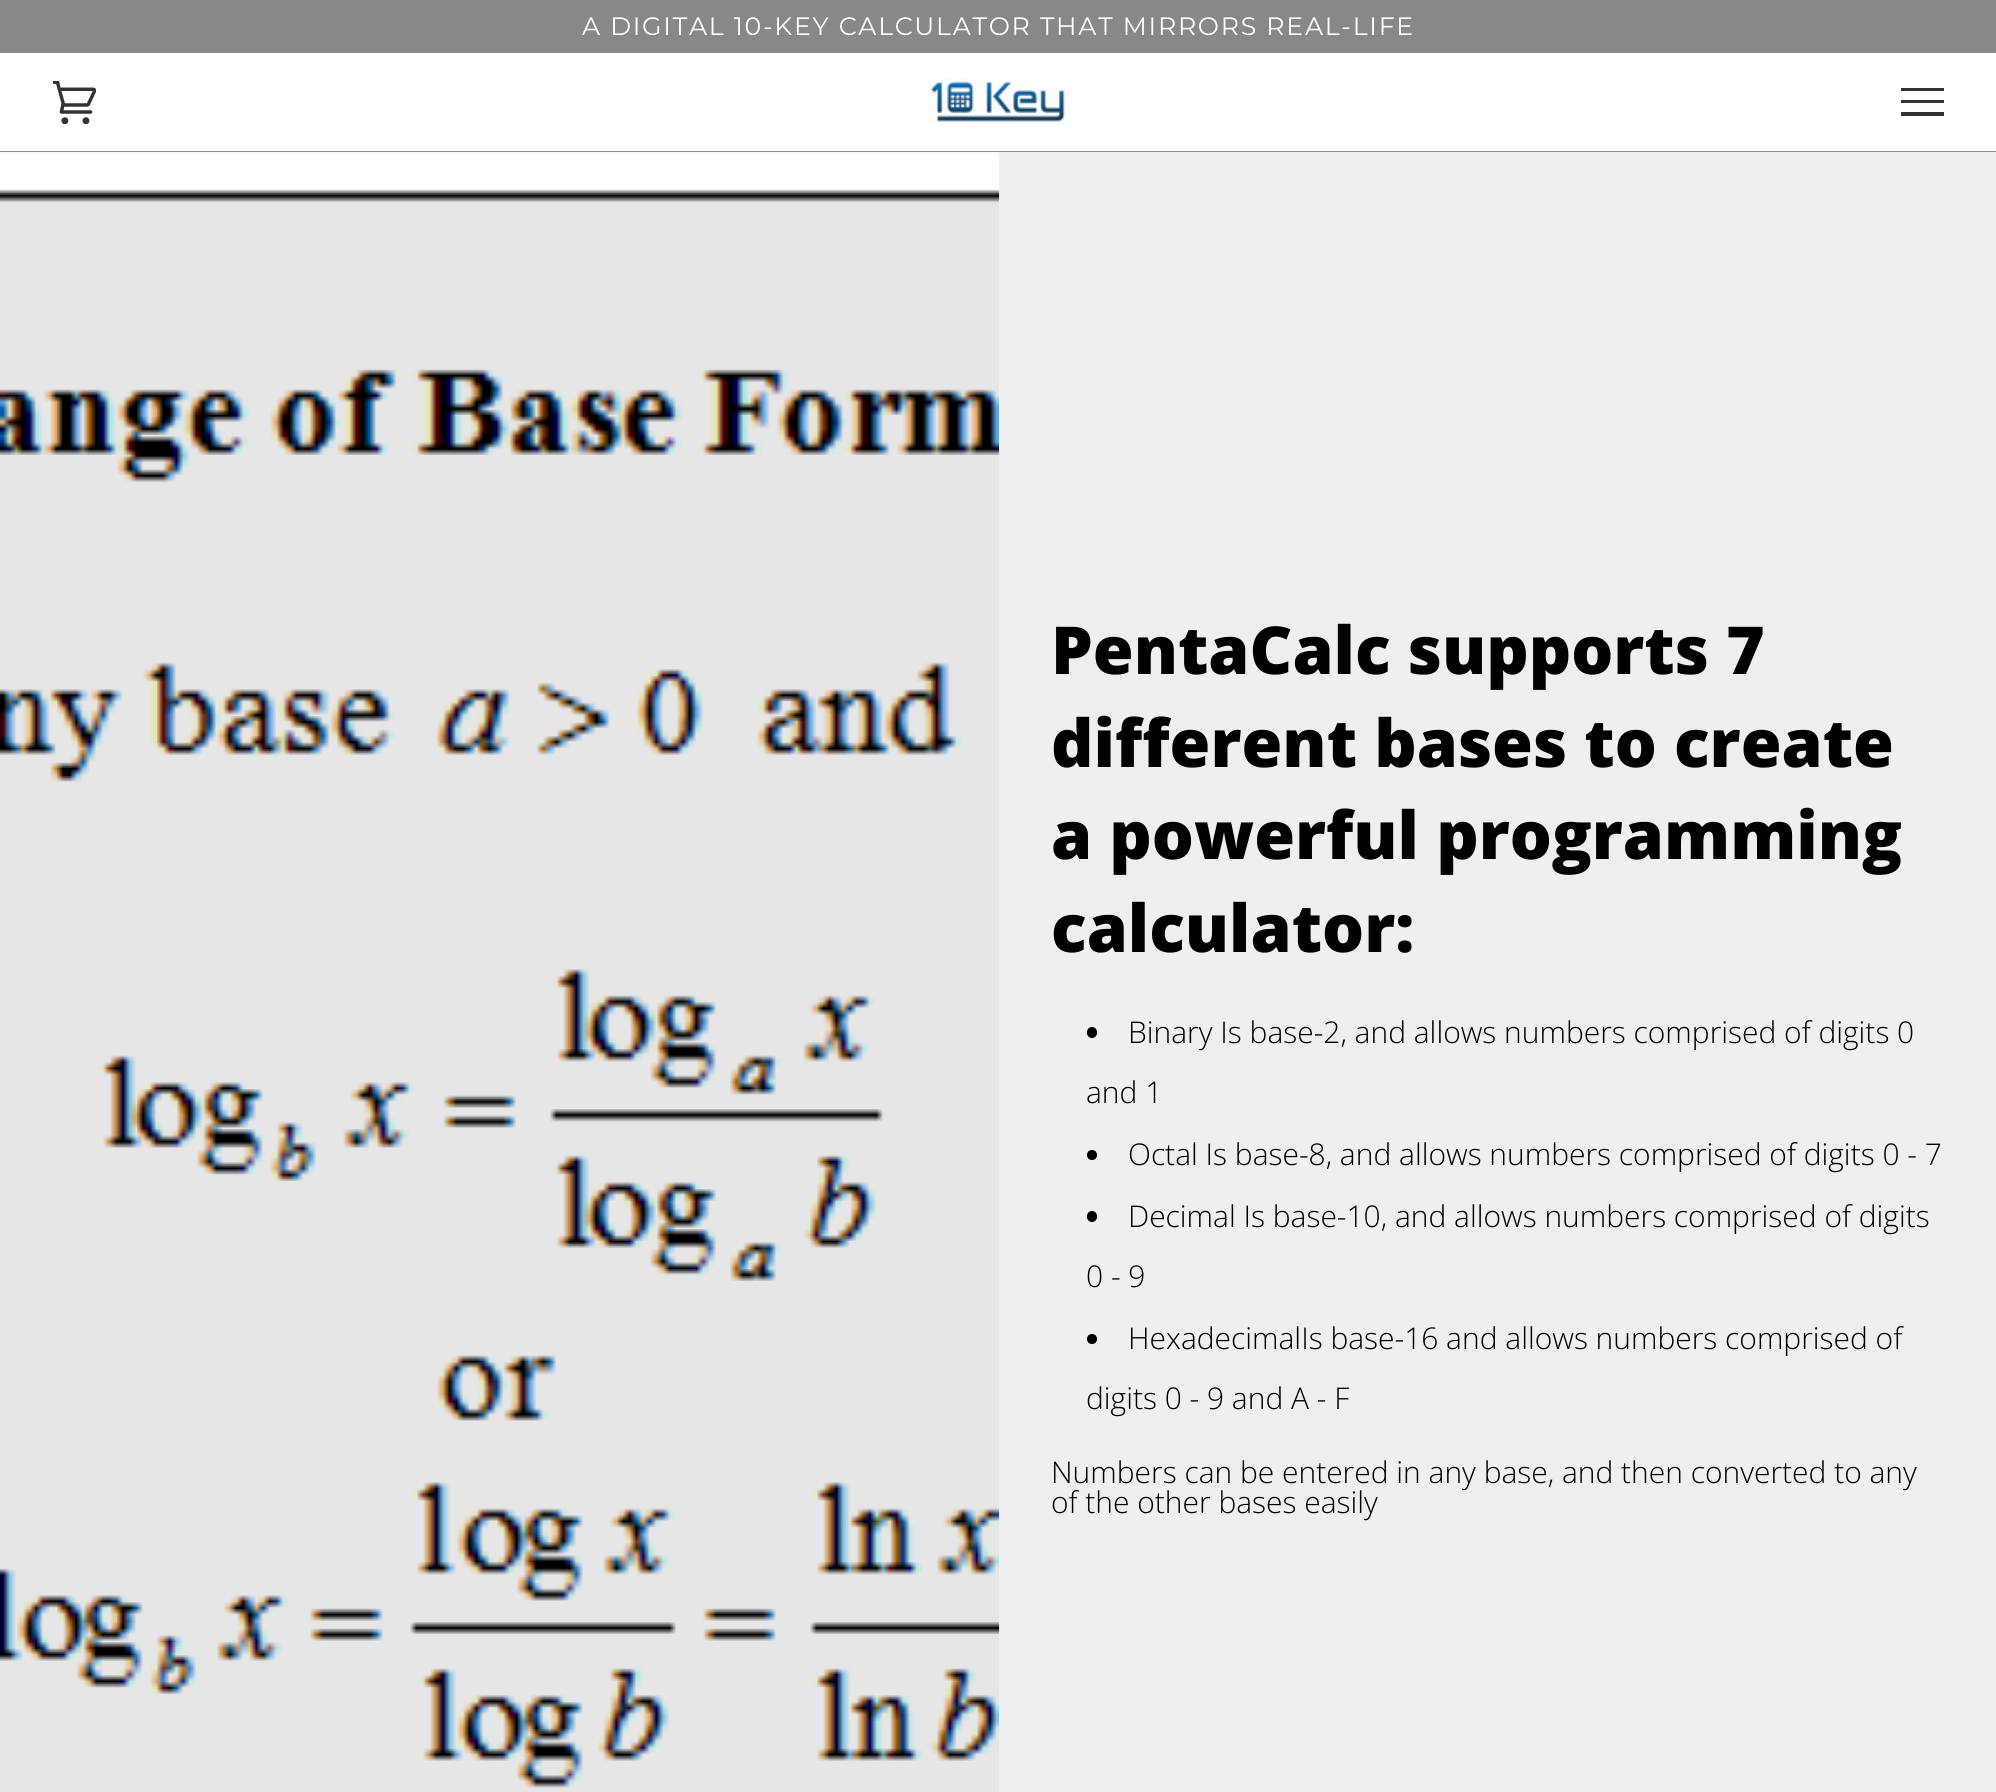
#include <cairo.h>
#include <math.h>
#include <stddef.h>

typedef struct { double x, y; const char *s; } line_t;
typedef struct { double x, y, w, h; unsigned color; } box_t;

static void ink(cairo_t *ctx, unsigned color) {
    cairo_set_source_rgb(ctx, (color >> 16) / 255.0, (color >> 8 & 255) / 255.0, (color & 255) / 255.0);
}

static void write_spaced(cairo_t *ctx, double x, double y, const char *s, double letter, double word) {
    cairo_move_to(ctx, x, y);
    while (*s) {
        char ch[5] = {0};
        int n = 0;
        do ch[n++] = *s++; while ((*s & 0xC0) == 0x80);
        cairo_show_text(ctx, ch);
        cairo_rel_move_to(ctx, letter + word * (*ch == ' '), 0);
    }
}

static void round_path(cairo_t *ctx, double x, double y, double w, double h, double r) {
    cairo_new_sub_path(ctx);
    cairo_arc(ctx, x + w - r, y + h - r, r, 0, M_PI / 2);
    cairo_arc(ctx, x + r, y + h - r, r, M_PI / 2, M_PI);
    cairo_arc(ctx, x + r, y + r, r, M_PI, 1.5 * M_PI);
    cairo_arc(ctx, x + w - r, y + r, r, 1.5 * M_PI, 2 * M_PI);
    cairo_close_path(ctx);
}

static void paste(cairo_t *ctx, const char *path, double x, double y, double w, double h) {
    cairo_surface_t *image = cairo_image_surface_create_from_png(path);
    cairo_save(ctx);
    cairo_set_source_surface(ctx, image, x, y);
    cairo_rectangle(ctx, x, y, w, h);
    cairo_fill(ctx);
    cairo_restore(ctx);
    cairo_surface_destroy(image);
}

int main(void) {
    cairo_surface_t *surface = cairo_image_surface_create(CAIRO_FORMAT_RGB24, 1996, 1792);
    cairo_t *ctx = cairo_create(surface);
    cairo_font_options_t *options = cairo_font_options_create();
    cairo_font_options_set_hint_metrics(options, CAIRO_HINT_METRICS_OFF);
    cairo_font_options_set_hint_style(options, CAIRO_HINT_STYLE_NONE);
    cairo_set_font_options(ctx, options);
    cairo_set_miter_limit(ctx, 4);
    ink(ctx, 0xFFFFFF);
    cairo_paint(ctx);
    ink(ctx, 0x888888);
    cairo_rectangle(ctx, 0, 0, 1996, 53);
    cairo_fill(ctx);
    cairo_select_font_face(ctx, "Montserrat Thin", CAIRO_FONT_SLANT_NORMAL, CAIRO_FONT_WEIGHT_NORMAL);
    cairo_set_font_size(ctx, 25.2);
    ink(ctx, 0xFFFFFF);
    write_spaced(ctx, 582, 35, "A DIGITAL 10-KEY CALCULATOR THAT MIRRORS REAL-LIFE", 1.75, 0);
    ink(ctx, 0x888888);
    cairo_rectangle(ctx, 0, 151, 1996, 1);
    cairo_fill(ctx);
    paste(ctx, "media/1.png", 53, 81, 43, 43);
    paste(ctx, "media/2.png", 929, 78, 139, 46);
    {
        static const box_t items[] = {
            {1901, 88, 43, 3, 0x333333},
            {1901, 100, 43, 3, 0x333333},
            {1901, 112, 43, 4, 0x333333},
            {0, 152, 1996, 1640, 0xEEEFF0},
        };
        for (size_t i = 0; i < sizeof items / sizeof *items; i++) {
            ink(ctx, items[i].color);
            cairo_rectangle(ctx, items[i].x, items[i].y, items[i].w, items[i].h);
            cairo_fill(ctx);
        }
    }
    paste(ctx, "media/3.png", 0, 152, 1000, 1640);
    cairo_select_font_face(ctx, "Open Sans ExtraBold", CAIRO_FONT_SLANT_NORMAL, CAIRO_FONT_WEIGHT_NORMAL);
    cairo_set_font_size(ctx, 66.1);
    ink(ctx, 0x000000);
    {
        static const line_t items[] = {
            {1051, 674, "PentaCalc supports 7"},
            {1051, 767, "different bases to create"},
            {1051, 859, "a powerful programming"},
            {1051, 952, "calculator:"},
        };
        for (size_t i = 0; i < sizeof items / sizeof *items; i++) {
            cairo_move_to(ctx, items[i].x, items[i].y);
            cairo_show_text(ctx, items[i].s);
        }
    }
    round_path(ctx, 1087, 1027, 10, 11, 5);
    cairo_fill(ctx);
    cairo_select_font_face(ctx, "Open Sans Light", CAIRO_FONT_SLANT_NORMAL, CAIRO_FONT_WEIGHT_NORMAL);
    cairo_set_font_size(ctx, 29.95);
    cairo_move_to(ctx, 1128, 1043);
    cairo_show_text(ctx, "Binary Is base-2, and allows numbers comprised of digits 0");
    cairo_move_to(ctx, 1086, 1103);
    cairo_show_text(ctx, "and 1");
    cairo_new_path(ctx);
    cairo_arc(ctx, 1092, 1155, 5, 0, 2 * M_PI);
    cairo_fill(ctx);
    cairo_move_to(ctx, 1128, 1165);
    cairo_show_text(ctx, "Octal Is base-8, and allows numbers comprised of digits 0 - 7");
    round_path(ctx, 1087, 1211, 10, 11, 5);
    cairo_fill(ctx);
    cairo_move_to(ctx, 1128, 1227);
    cairo_show_text(ctx, "Decimal Is base-10, and allows numbers comprised of digits");
    cairo_move_to(ctx, 1086, 1287);
    cairo_show_text(ctx, "0 - 9");
    cairo_new_path(ctx);
    cairo_arc(ctx, 1092, 1339, 5, 0, 2 * M_PI);
    cairo_fill(ctx);
    {
        static const line_t items[] = {
            {1128, 1349, "HexadecimalIs base-16 and allows numbers comprised of"},
            {1086, 1409, "digits 0 - 9 and A - F"},
            {1051, 1483, "Numbers can be entered in any base, and then converted to any"},
            {1051, 1513, "of the other bases easily"},
        };
        for (size_t i = 0; i < sizeof items / sizeof *items; i++) {
            cairo_move_to(ctx, items[i].x, items[i].y);
            cairo_show_text(ctx, items[i].s);
        }
    }
    cairo_surface_write_to_png(surface, "image.png");
    cairo_font_options_destroy(options);
    cairo_destroy(ctx);
    cairo_surface_destroy(surface);
    return 0;
}
